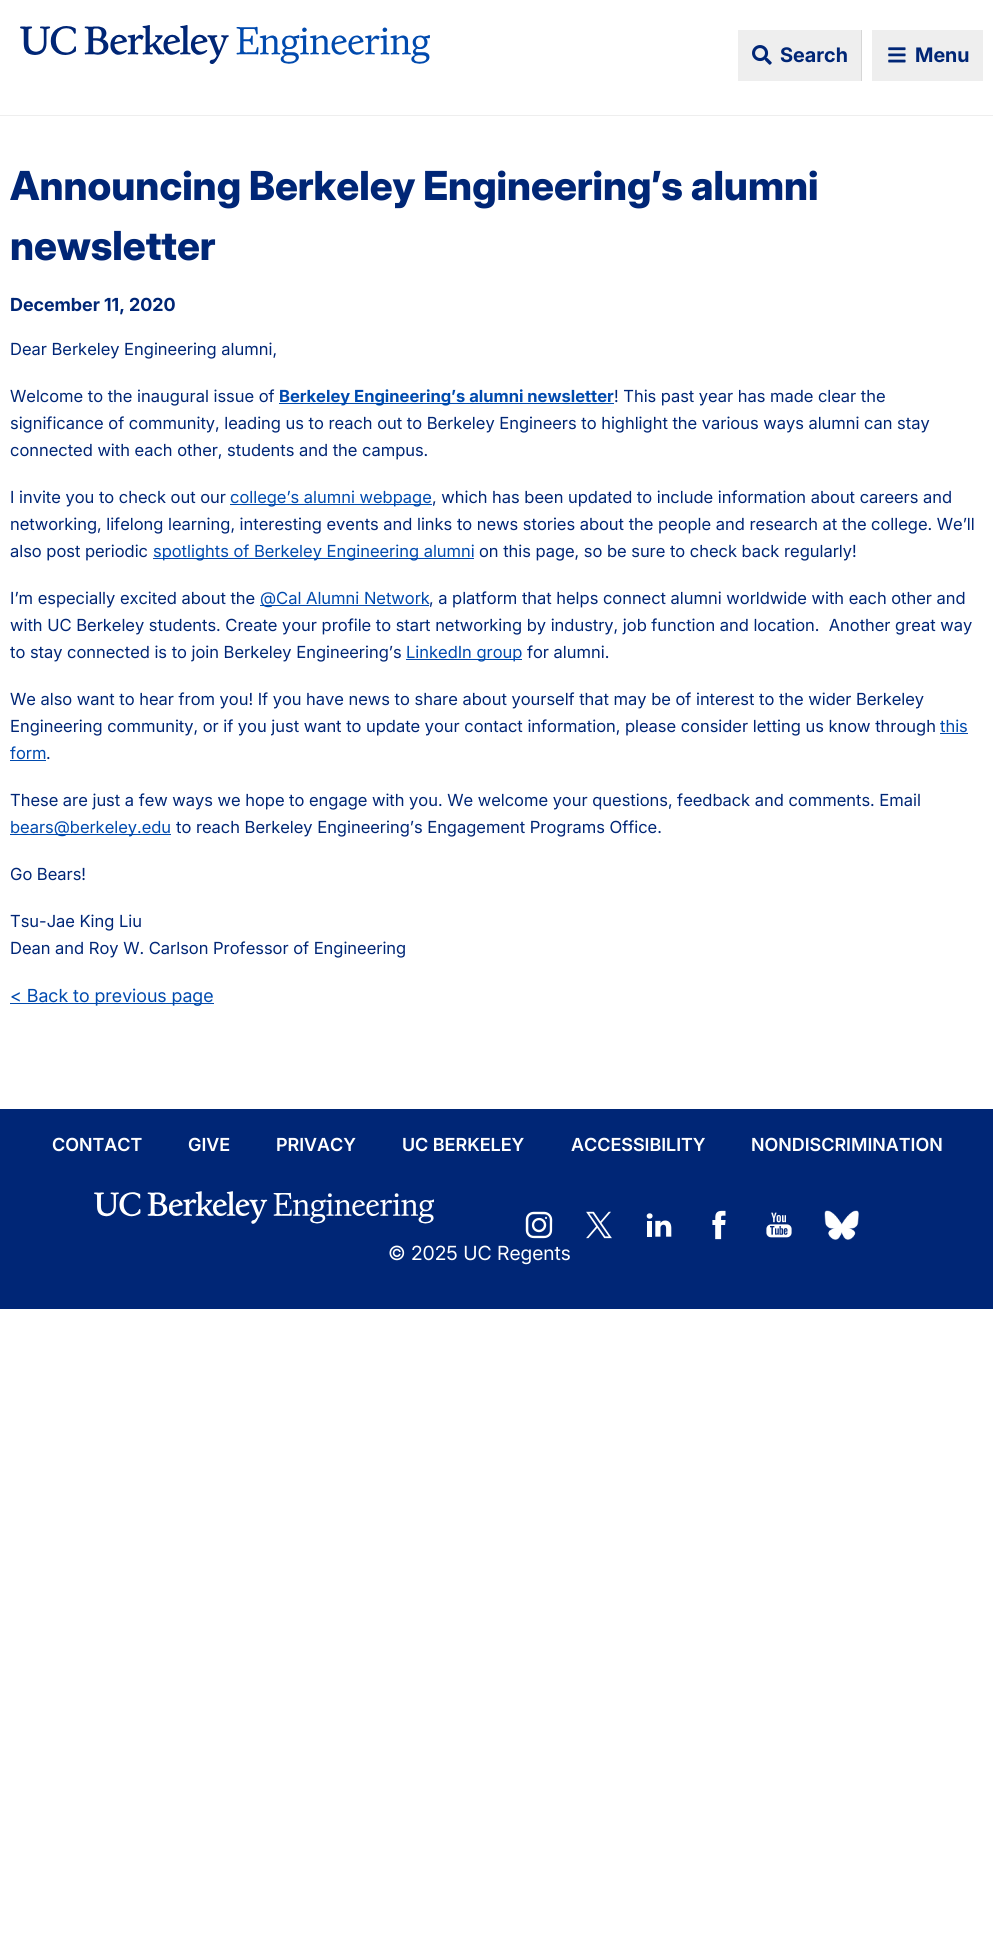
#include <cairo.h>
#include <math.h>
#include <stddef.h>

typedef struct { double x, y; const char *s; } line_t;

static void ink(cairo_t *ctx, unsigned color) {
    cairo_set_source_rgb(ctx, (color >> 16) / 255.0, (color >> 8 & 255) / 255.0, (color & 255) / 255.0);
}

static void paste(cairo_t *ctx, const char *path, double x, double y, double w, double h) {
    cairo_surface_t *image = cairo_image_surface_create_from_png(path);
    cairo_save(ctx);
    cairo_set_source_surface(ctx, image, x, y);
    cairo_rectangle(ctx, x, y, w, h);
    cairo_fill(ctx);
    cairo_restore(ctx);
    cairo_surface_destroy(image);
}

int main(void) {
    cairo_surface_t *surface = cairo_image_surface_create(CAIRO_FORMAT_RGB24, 993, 1944);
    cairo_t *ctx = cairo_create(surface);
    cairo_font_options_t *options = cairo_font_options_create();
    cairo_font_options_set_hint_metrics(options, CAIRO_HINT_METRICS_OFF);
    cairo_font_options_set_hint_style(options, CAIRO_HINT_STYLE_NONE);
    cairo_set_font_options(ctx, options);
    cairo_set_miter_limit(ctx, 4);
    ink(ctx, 0xFFFFFF);
    cairo_paint(ctx);
    ink(ctx, 0xEEEEEE);
    cairo_rectangle(ctx, 0, 115, 993, 1);
    cairo_fill(ctx);
    paste(ctx, "media/1.png", 20, 25, 410, 39);
    cairo_rectangle(ctx, 738, 30, 123, 51);
    cairo_fill(ctx);
    ink(ctx, 0xD6D6D6);
    cairo_rectangle(ctx, 861, 30, 1, 51);
    cairo_fill(ctx);
    paste(ctx, "media/2.png", 752, 45, 20, 20);
    cairo_select_font_face(ctx, "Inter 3", CAIRO_FONT_SLANT_NORMAL, CAIRO_FONT_WEIGHT_BOLD);
    cairo_set_font_size(ctx, 20);
    ink(ctx, 0x002676);
    cairo_move_to(ctx, 780, 62);
    cairo_show_text(ctx, "Search");
    ink(ctx, 0xEEEEEE);
    cairo_rectangle(ctx, 872, 30, 111, 51);
    cairo_fill(ctx);
    paste(ctx, "media/3.png", 888, 47, 18, 16);
    ink(ctx, 0x002676);
    cairo_move_to(ctx, 915, 62);
    cairo_show_text(ctx, "Menu");
    cairo_select_font_face(ctx, "Inter ExtraBold", CAIRO_FONT_SLANT_NORMAL, CAIRO_FONT_WEIGHT_NORMAL);
    cairo_set_font_size(ctx, 40);
    cairo_move_to(ctx, 10, 200);
    cairo_show_text(ctx, "Announcing Berkeley Engineering’s alumni");
    cairo_move_to(ctx, 10, 260);
    cairo_show_text(ctx, "newsletter");
    cairo_select_font_face(ctx, "Inter", CAIRO_FONT_SLANT_NORMAL, CAIRO_FONT_WEIGHT_BOLD);
    cairo_set_font_size(ctx, 18);
    cairo_move_to(ctx, 10, 311);
    cairo_show_text(ctx, "December 11, 2020");
    cairo_select_font_face(ctx, "Inter", CAIRO_FONT_SLANT_NORMAL, CAIRO_FONT_WEIGHT_NORMAL);
    cairo_set_font_size(ctx, 16.65);
    cairo_move_to(ctx, 10, 355);
    cairo_show_text(ctx, "Dear Berkeley Engineering alumni,");
    cairo_move_to(ctx, 10, 402);
    cairo_show_text(ctx, "Welcome to the inaugural issue of");
    ink(ctx, 0x004AAE);
    cairo_rectangle(ctx, 279, 403, 335, 1);
    cairo_fill(ctx);
    cairo_select_font_face(ctx, "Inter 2", CAIRO_FONT_SLANT_NORMAL, CAIRO_FONT_WEIGHT_BOLD);
    cairo_move_to(ctx, 279, 402);
    cairo_show_text(ctx, "Berkeley Engineering’s alumni newsletter");
    cairo_select_font_face(ctx, "Inter", CAIRO_FONT_SLANT_NORMAL, CAIRO_FONT_WEIGHT_NORMAL);
    ink(ctx, 0x002676);
    {
        static const line_t items[] = {
            {614, 402, "! This past year has made clear the"},
            {10, 429, "significance of community, leading us to reach out to Berkeley Engineers to highlight the various ways alumni can stay"},
            {10, 456, "connected with each other, students and the campus."},
            {10, 503, "I invite you to check out our"},
        };
        for (size_t i = 0; i < sizeof items / sizeof *items; i++) {
            cairo_move_to(ctx, items[i].x, items[i].y);
            cairo_show_text(ctx, items[i].s);
        }
    }
    ink(ctx, 0x004AAE);
    cairo_rectangle(ctx, 230, 504, 202, 1);
    cairo_fill(ctx);
    cairo_move_to(ctx, 230, 503);
    cairo_show_text(ctx, "college’s alumni webpage");
    ink(ctx, 0x002676);
    {
        static const line_t items[] = {
            {432, 503, ", which has been updated to include information about careers and"},
            {10, 530, "networking, lifelong learning, interesting events and links to news stories about the people and research at the college. We’ll"},
            {10, 557, "also post periodic"},
        };
        for (size_t i = 0; i < sizeof items / sizeof *items; i++) {
            cairo_move_to(ctx, items[i].x, items[i].y);
            cairo_show_text(ctx, items[i].s);
        }
    }
    ink(ctx, 0x004AAE);
    cairo_rectangle(ctx, 153, 558, 321, 1);
    cairo_fill(ctx);
    cairo_move_to(ctx, 153, 557);
    cairo_show_text(ctx, "spotlights of Berkeley Engineering alumni");
    ink(ctx, 0x002676);
    cairo_move_to(ctx, 479, 557);
    cairo_show_text(ctx, "on this page, so be sure to check back regularly!");
    cairo_move_to(ctx, 10, 604);
    cairo_show_text(ctx, "I’m especially excited about the");
    ink(ctx, 0x004AAE);
    cairo_rectangle(ctx, 260, 605, 169, 1);
    cairo_fill(ctx);
    cairo_move_to(ctx, 260, 604);
    cairo_show_text(ctx, "@Cal Alumni Network");
    ink(ctx, 0x002676);
    {
        static const line_t items[] = {
            {429, 604, ", a platform that helps connect alumni worldwide with each other and"},
            {10, 631, "with UC Berkeley students. Create your profile to start networking by industry, job function and location.  Another great way"},
            {10, 658, "to stay connected is to join Berkeley Engineering’s"},
        };
        for (size_t i = 0; i < sizeof items / sizeof *items; i++) {
            cairo_move_to(ctx, items[i].x, items[i].y);
            cairo_show_text(ctx, items[i].s);
        }
    }
    ink(ctx, 0x004AAE);
    cairo_rectangle(ctx, 406, 659, 116, 1);
    cairo_fill(ctx);
    cairo_move_to(ctx, 406, 658);
    cairo_show_text(ctx, "LinkedIn group");
    ink(ctx, 0x002676);
    {
        static const line_t items[] = {
            {527, 658, "for alumni."},
            {10, 705, "We also want to hear from you! If you have news to share about yourself that may be of interest to the wider Berkeley"},
            {10, 732, "Engineering community, or if you just want to update your contact information, please consider letting us know through"},
        };
        for (size_t i = 0; i < sizeof items / sizeof *items; i++) {
            cairo_move_to(ctx, items[i].x, items[i].y);
            cairo_show_text(ctx, items[i].s);
        }
    }
    ink(ctx, 0x004AAE);
    cairo_move_to(ctx, 940, 732);
    cairo_show_text(ctx, "this");
    cairo_rectangle(ctx, 940, 733, 28, 1);
    cairo_fill(ctx);
    cairo_move_to(ctx, 10, 759);
    cairo_show_text(ctx, "form");
    cairo_rectangle(ctx, 10, 760, 36, 1);
    cairo_fill(ctx);
    ink(ctx, 0x002676);
    cairo_move_to(ctx, 46, 759);
    cairo_show_text(ctx, ".");
    cairo_move_to(ctx, 10, 806);
    cairo_show_text(ctx, "These are just a few ways we hope to engage with you. We welcome your questions, feedback and comments. Email");
    ink(ctx, 0x004AAE);
    cairo_rectangle(ctx, 10, 834, 161, 1);
    cairo_fill(ctx);
    cairo_move_to(ctx, 10, 833);
    cairo_show_text(ctx, "bears@berkeley.edu");
    ink(ctx, 0x002676);
    {
        static const line_t items[] = {
            {176, 833, "to reach Berkeley Engineering’s Engagement Programs Office."},
            {10, 880, "Go Bears!"},
            {10, 927, "Tsu-Jae King Liu"},
            {10, 954, "Dean and Roy W. Carlson Professor of Engineering"},
        };
        for (size_t i = 0; i < sizeof items / sizeof *items; i++) {
            cairo_move_to(ctx, items[i].x, items[i].y);
            cairo_show_text(ctx, items[i].s);
        }
    }
    ink(ctx, 0x004AAE);
    cairo_rectangle(ctx, 10, 1003, 204, 1);
    cairo_fill(ctx);
    cairo_select_font_face(ctx, "Inter 2", CAIRO_FONT_SLANT_NORMAL, CAIRO_FONT_WEIGHT_NORMAL);
    cairo_set_font_size(ctx, 18);
    cairo_move_to(ctx, 10, 1002);
    cairo_show_text(ctx, "< Back to previous page");
    ink(ctx, 0x002676);
    cairo_rectangle(ctx, 0, 1109, 993, 200);
    cairo_fill(ctx);
    cairo_select_font_face(ctx, "Inter SemiBold", CAIRO_FONT_SLANT_NORMAL, CAIRO_FONT_WEIGHT_NORMAL);
    ink(ctx, 0xFFFFFF);
    {
        static const line_t items[] = {
            {52, 1151, "CONTACT"},
            {188, 1151, "GIVE"},
            {276, 1151, "PRIVACY"},
            {402, 1151, "UC BERKELEY"},
            {571, 1151, "ACCESSIBILITY"},
            {751, 1151, "NONDISCRIMINATION"},
        };
        for (size_t i = 0; i < sizeof items / sizeof *items; i++) {
            cairo_move_to(ctx, items[i].x, items[i].y);
            cairo_show_text(ctx, items[i].s);
        }
    }
    paste(ctx, "media/4.png", 94, 1191, 340, 33);
    paste(ctx, "media/5.png", 525, 1211, 28, 28);
    paste(ctx, "media/6.png", 586, 1211, 26, 28);
    paste(ctx, "media/7.png", 646, 1213, 26, 24);
    paste(ctx, "media/8.png", 712, 1210, 14, 30);
    paste(ctx, "media/9.png", 766, 1212, 26, 26);
    paste(ctx, "media/10.png", 824, 1210, 35, 30);
    cairo_select_font_face(ctx, "Inter 3", CAIRO_FONT_SLANT_NORMAL, CAIRO_FONT_WEIGHT_NORMAL);
    cairo_set_font_size(ctx, 19.5);
    cairo_move_to(ctx, 388, 1260);
    cairo_show_text(ctx, "© 2025 UC Regents");
    cairo_surface_write_to_png(surface, "image.png");
    cairo_font_options_destroy(options);
    cairo_destroy(ctx);
    cairo_surface_destroy(surface);
    return 0;
}
